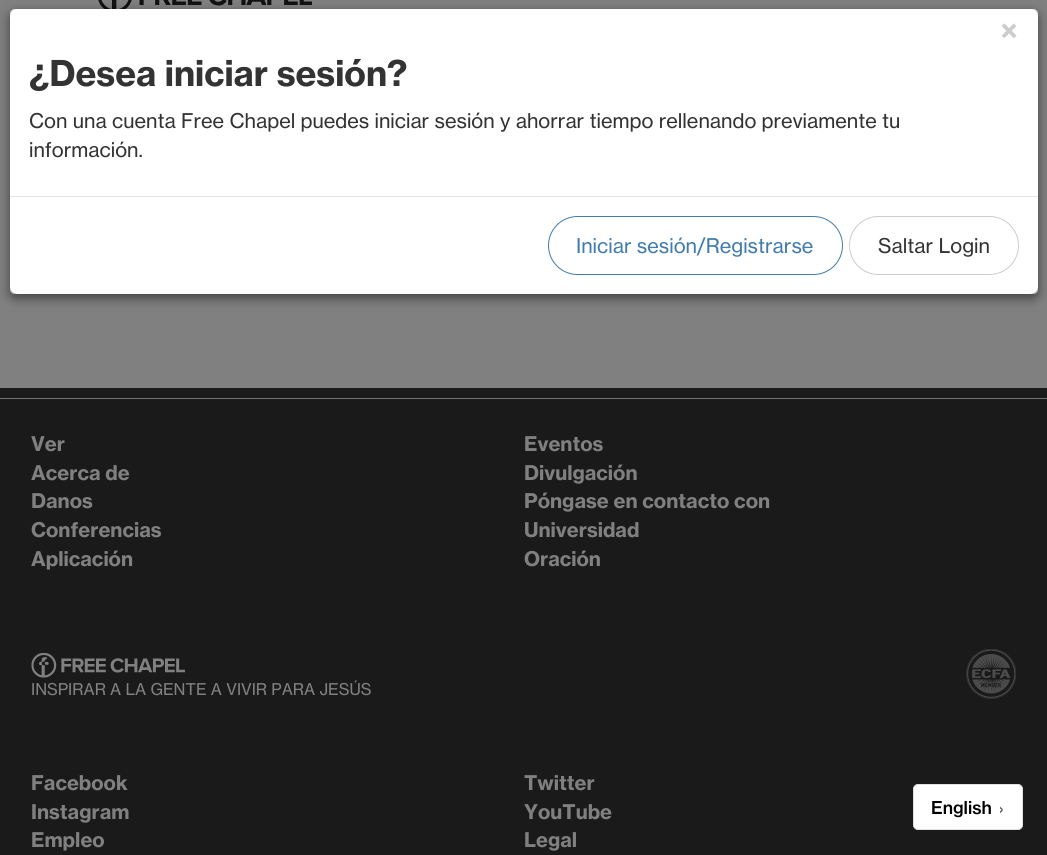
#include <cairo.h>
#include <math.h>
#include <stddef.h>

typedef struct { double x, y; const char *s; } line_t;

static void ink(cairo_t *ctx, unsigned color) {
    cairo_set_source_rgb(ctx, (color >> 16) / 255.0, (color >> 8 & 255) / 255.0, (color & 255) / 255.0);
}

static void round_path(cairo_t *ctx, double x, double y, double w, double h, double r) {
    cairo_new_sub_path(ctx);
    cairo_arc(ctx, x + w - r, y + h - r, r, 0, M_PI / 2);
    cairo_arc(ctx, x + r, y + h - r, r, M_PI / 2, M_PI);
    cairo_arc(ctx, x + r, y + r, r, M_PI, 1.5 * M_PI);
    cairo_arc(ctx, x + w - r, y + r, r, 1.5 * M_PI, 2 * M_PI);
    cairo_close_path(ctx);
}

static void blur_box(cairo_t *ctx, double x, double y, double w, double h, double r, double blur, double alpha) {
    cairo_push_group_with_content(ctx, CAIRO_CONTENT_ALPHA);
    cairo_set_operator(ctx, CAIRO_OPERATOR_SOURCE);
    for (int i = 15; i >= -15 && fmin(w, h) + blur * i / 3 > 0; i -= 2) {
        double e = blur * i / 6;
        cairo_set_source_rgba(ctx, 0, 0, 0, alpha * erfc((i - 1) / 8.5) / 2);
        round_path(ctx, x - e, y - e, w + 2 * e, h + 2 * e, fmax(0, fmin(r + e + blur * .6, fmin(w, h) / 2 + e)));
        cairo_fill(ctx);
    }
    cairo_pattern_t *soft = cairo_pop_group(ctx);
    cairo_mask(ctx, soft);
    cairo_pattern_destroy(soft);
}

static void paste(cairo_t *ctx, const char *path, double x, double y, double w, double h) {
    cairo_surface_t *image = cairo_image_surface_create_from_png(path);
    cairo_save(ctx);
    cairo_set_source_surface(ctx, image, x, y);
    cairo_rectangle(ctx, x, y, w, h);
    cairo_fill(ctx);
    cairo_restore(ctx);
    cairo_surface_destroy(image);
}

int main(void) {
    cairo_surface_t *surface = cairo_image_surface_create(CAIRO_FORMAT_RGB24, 1047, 855);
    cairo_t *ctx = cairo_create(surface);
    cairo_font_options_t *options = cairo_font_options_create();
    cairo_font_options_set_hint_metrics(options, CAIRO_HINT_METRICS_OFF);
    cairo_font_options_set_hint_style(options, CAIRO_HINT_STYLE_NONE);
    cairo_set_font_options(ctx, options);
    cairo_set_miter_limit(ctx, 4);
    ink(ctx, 0x808080);
    cairo_paint(ctx);
    paste(ctx, "media/1.png", 98, 0, 214, 9);
    ink(ctx, 0x000000);
    blur_box(ctx, 10, 13, 1028, 285, 5, 5.5, 0.5);
    ink(ctx, 0xFFFFFF);
    round_path(ctx, 10, 9, 1028, 285, 5);
    cairo_fill(ctx);
    cairo_save(ctx);
    round_path(ctx, 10, 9, 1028, 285, 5);
    cairo_clip(ctx);
    ink(ctx, 0x000000);
    blur_box(ctx, 10, 15, 1028, 285, 8, 9.5, 0.5);
    cairo_restore(ctx);
    round_path(ctx, 10, 9, 1028, 285, 8);
    cairo_fill(ctx);
    cairo_select_font_face(ctx, "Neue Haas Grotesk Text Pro", CAIRO_FONT_SLANT_NORMAL, CAIRO_FONT_WEIGHT_BOLD);
    cairo_set_font_size(ctx, 30);
    ink(ctx, 0xCCCCCC);
    cairo_move_to(ctx, 1000, 41);
    cairo_show_text(ctx, "×");
    cairo_set_font_size(ctx, 35);
    ink(ctx, 0x333333);
    cairo_move_to(ctx, 29, 86);
    cairo_show_text(ctx, "¿Desea iniciar sesión?");
    cairo_select_font_face(ctx, "Neue Haas Grotesk Text Pro", CAIRO_FONT_SLANT_NORMAL, CAIRO_FONT_WEIGHT_NORMAL);
    cairo_set_font_size(ctx, 20);
    cairo_move_to(ctx, 29, 128);
    cairo_show_text(ctx, "Con una cuenta Free Chapel puedes iniciar sesión y ahorrar tiempo rellenando previamente tu");
    cairo_move_to(ctx, 29, 157);
    cairo_show_text(ctx, "información.");
    ink(ctx, 0xE5E5E5);
    cairo_rectangle(ctx, 10, 196, 1028, 1);
    cairo_fill(ctx);
    round_path(ctx, 548.5, 216.5, 294, 58, 29);
    ink(ctx, 0x417CAD);
    cairo_set_line_width(ctx, 1);
    cairo_stroke(ctx);
    cairo_move_to(ctx, 576, 253);
    cairo_show_text(ctx, "Iniciar sesión/Registrarse");
    round_path(ctx, 849.5, 216.5, 169, 58, 29);
    ink(ctx, 0xCCCCCC);
    cairo_stroke(ctx);
    ink(ctx, 0x333333);
    cairo_move_to(ctx, 878, 253);
    cairo_show_text(ctx, "Saltar Login");
    ink(ctx, 0x1A1A1A);
    cairo_rectangle(ctx, 0, 388, 1047, 467);
    cairo_fill(ctx);
    ink(ctx, 0x6F6F6F);
    cairo_rectangle(ctx, 0, 398, 1047, 1);
    cairo_fill(ctx);
    cairo_select_font_face(ctx, "Neue Haas Grotesk Text Pro", CAIRO_FONT_SLANT_NORMAL, CAIRO_FONT_WEIGHT_BOLD);
    ink(ctx, 0x808080);
    {
        static const line_t items[] = {
            {31, 451, "Ver"},
            {524, 451, "Eventos"},
            {31, 480, "Acerca de"},
            {524, 480, "Divulgación"},
            {31, 508, "Danos"},
            {524, 508, "Póngase en contacto con"},
            {31, 537, "Conferencias"},
            {524, 537, "Universidad"},
            {31, 566, "Aplicación"},
            {524, 566, "Oración"},
        };
        for (size_t i = 0; i < sizeof items / sizeof *items; i++) {
            cairo_move_to(ctx, items[i].x, items[i].y);
            cairo_show_text(ctx, items[i].s);
        }
    }
    paste(ctx, "media/2.png", 31, 653, 154, 25);
    cairo_select_font_face(ctx, "Neue Haas Grotesk Text Pro", CAIRO_FONT_SLANT_NORMAL, CAIRO_FONT_WEIGHT_NORMAL);
    cairo_set_font_size(ctx, 16);
    cairo_move_to(ctx, 31, 695);
    cairo_show_text(ctx, "INSPIRAR A LA GENTE A VIVIR PARA JESÚS");
    paste(ctx, "media/3.png", 966, 649, 50, 50);
    cairo_select_font_face(ctx, "Neue Haas Grotesk Text Pro", CAIRO_FONT_SLANT_NORMAL, CAIRO_FONT_WEIGHT_BOLD);
    cairo_set_font_size(ctx, 20);
    {
        static const line_t items[] = {
            {31, 790, "Facebook"},
            {524, 790, "Twitter"},
            {31, 819, "Instagram"},
            {524, 819, "YouTube"},
            {31, 847, "Empleo"},
            {524, 847, "Legal"},
        };
        for (size_t i = 0; i < sizeof items / sizeof *items; i++) {
            cairo_move_to(ctx, items[i].x, items[i].y);
            cairo_show_text(ctx, items[i].s);
        }
    }
    ink(ctx, 0xFFFFFF);
    round_path(ctx, 913.5, 784.5, 109, 45, 4.5);
    cairo_fill_preserve(ctx);
    ink(ctx, 0xE0E0E0);
    cairo_stroke(ctx);
    cairo_select_font_face(ctx, "Neue Haas Grotesk Text Pro Medium", CAIRO_FONT_SLANT_NORMAL, CAIRO_FONT_WEIGHT_NORMAL);
    cairo_set_font_size(ctx, 17.5);
    ink(ctx, 0x000000);
    cairo_move_to(ctx, 931, 814);
    cairo_show_text(ctx, "English");
    cairo_set_font_size(ctx, 15);
    ink(ctx, 0x555555);
    cairo_move_to(ctx, 999, 814);
    cairo_show_text(ctx, "›");
    cairo_surface_write_to_png(surface, "image.png");
    cairo_font_options_destroy(options);
    cairo_destroy(ctx);
    cairo_surface_destroy(surface);
    return 0;
}
